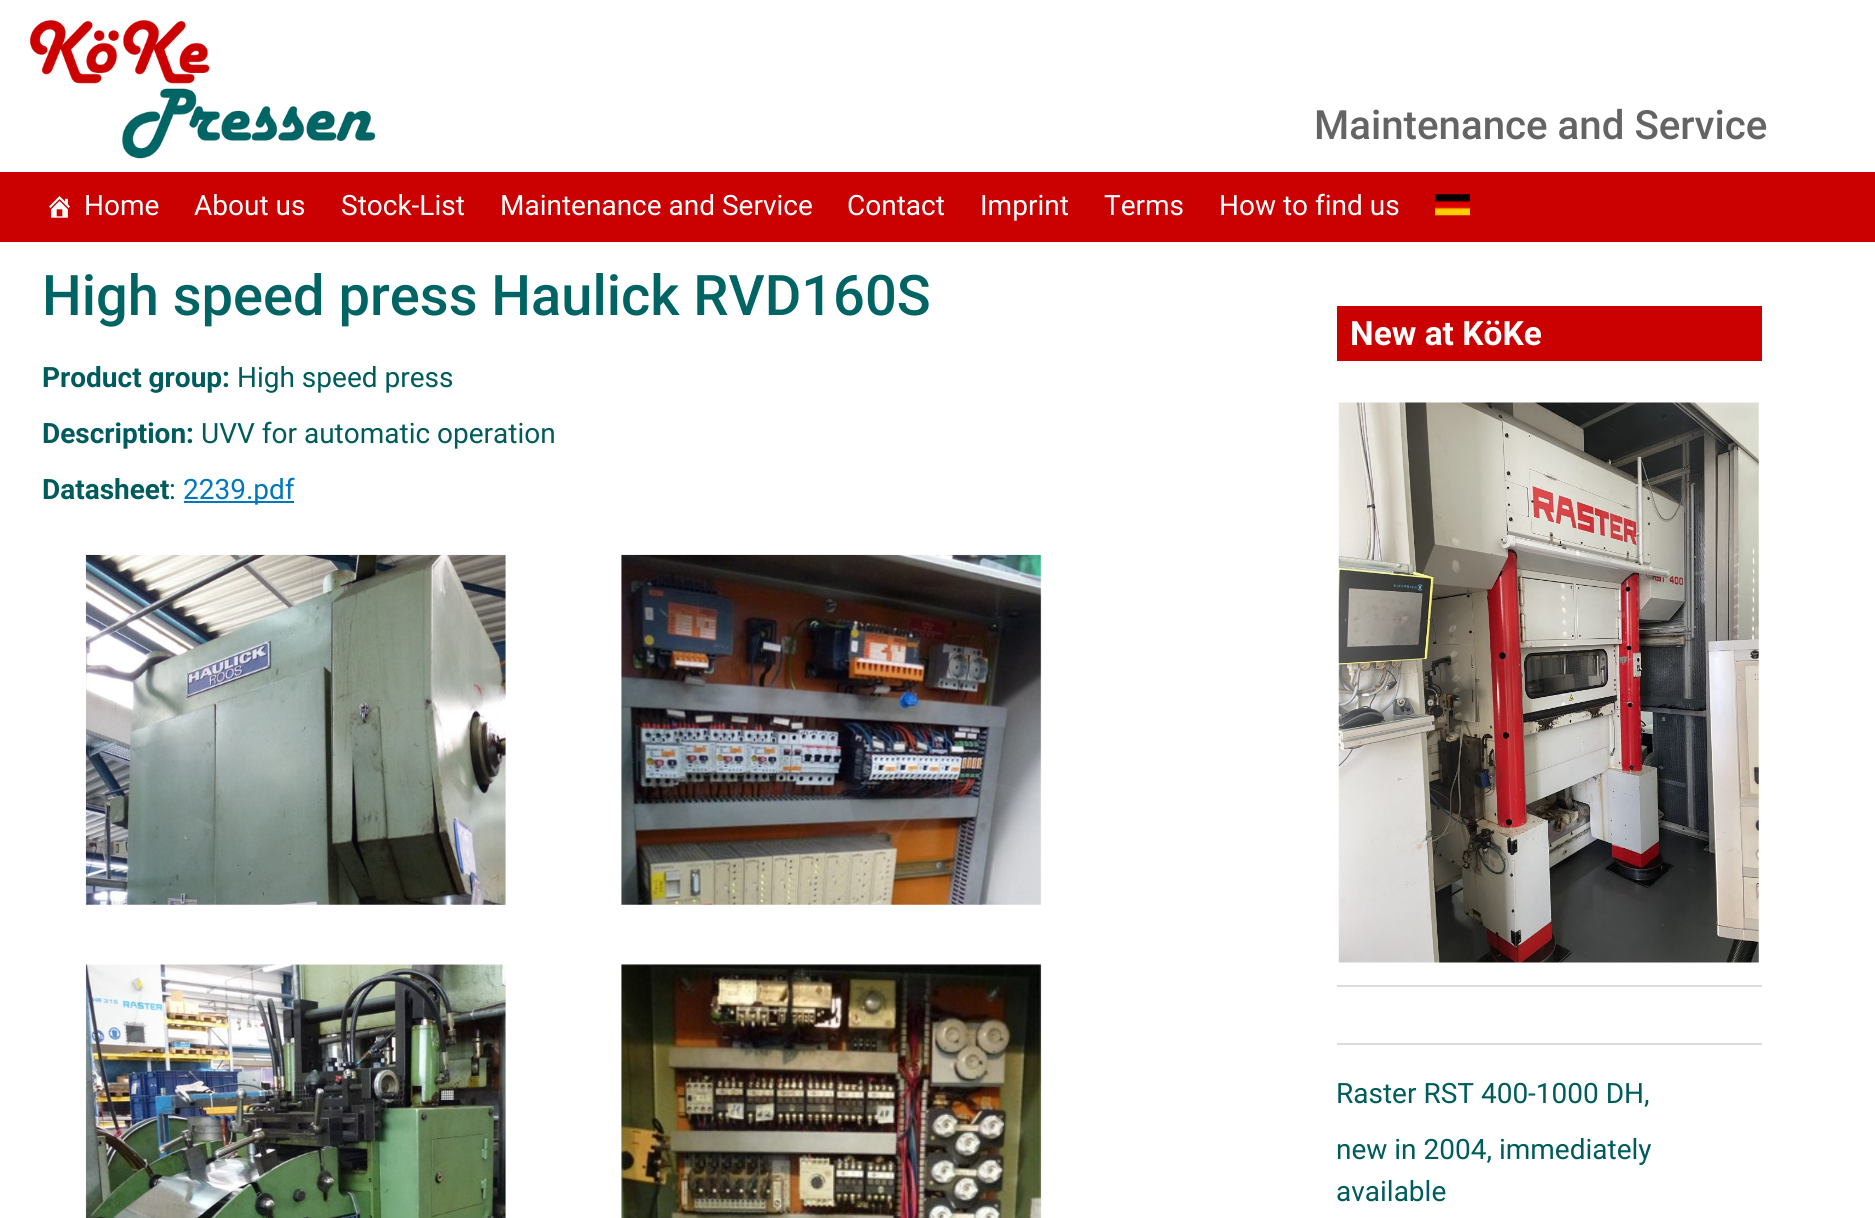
#include <cairo.h>
#include <math.h>
#include <stddef.h>

typedef struct { double x, y; const char *s; } line_t;

static void ink(cairo_t *ctx, unsigned color) {
    cairo_set_source_rgb(ctx, (color >> 16) / 255.0, (color >> 8 & 255) / 255.0, (color & 255) / 255.0);
}

static void paste(cairo_t *ctx, const char *path, double x, double y, double w, double h) {
    cairo_surface_t *image = cairo_image_surface_create_from_png(path);
    cairo_save(ctx);
    cairo_set_source_surface(ctx, image, x, y);
    cairo_rectangle(ctx, x, y, w, h);
    cairo_fill(ctx);
    cairo_restore(ctx);
    cairo_surface_destroy(image);
}

int main(void) {
    cairo_surface_t *surface = cairo_image_surface_create(CAIRO_FORMAT_RGB24, 1875, 1218);
    cairo_t *ctx = cairo_create(surface);
    cairo_font_options_t *options = cairo_font_options_create();
    cairo_font_options_set_hint_metrics(options, CAIRO_HINT_METRICS_OFF);
    cairo_font_options_set_hint_style(options, CAIRO_HINT_STYLE_NONE);
    cairo_set_font_options(ctx, options);
    cairo_set_miter_limit(ctx, 4);
    ink(ctx, 0xFFFFFF);
    cairo_paint(ctx);
    paste(ctx, "media/1.png", 30, 20, 346, 139);
    cairo_select_font_face(ctx, "Roboto Medium", CAIRO_FONT_SLANT_NORMAL, CAIRO_FONT_WEIGHT_NORMAL);
    cairo_set_font_size(ctx, 40.25);
    ink(ctx, 0x646464);
    cairo_move_to(ctx, 1314, 139);
    cairo_show_text(ctx, "Maintenance and Service");
    ink(ctx, 0xCB0000);
    cairo_rectangle(ctx, 0, 172, 1875, 70);
    cairo_fill(ctx);
    paste(ctx, "media/2.png", 49, 196, 21, 22);
    cairo_select_font_face(ctx, "Roboto", CAIRO_FONT_SLANT_NORMAL, CAIRO_FONT_WEIGHT_NORMAL);
    cairo_set_font_size(ctx, 28);
    ink(ctx, 0xFFFFFF);
    {
        static const line_t items[] = {
            {84, 215, "Home"},
            {194, 215, "About us"},
            {341, 215, "Stock-List"},
            {500, 215, "Maintenance and Service"},
            {847, 215, "Contact"},
            {980, 215, "Imprint"},
            {1104, 215, "Terms"},
            {1219, 215, "How to find us"},
        };
        for (size_t i = 0; i < sizeof items / sizeof *items; i++) {
            cairo_move_to(ctx, items[i].x, items[i].y);
            cairo_show_text(ctx, items[i].s);
        }
    }
    paste(ctx, "media/3.png", 1435, 194, 35, 22);
    cairo_select_font_face(ctx, "Roboto Medium", CAIRO_FONT_SLANT_NORMAL, CAIRO_FONT_WEIGHT_NORMAL);
    cairo_set_font_size(ctx, 56);
    ink(ctx, 0x006464);
    cairo_move_to(ctx, 42, 315);
    cairo_show_text(ctx, "High speed press Haulick RVD160S");
    cairo_select_font_face(ctx, "Roboto", CAIRO_FONT_SLANT_NORMAL, CAIRO_FONT_WEIGHT_BOLD);
    cairo_set_font_size(ctx, 28);
    ink(ctx, 0x005C5C);
    cairo_move_to(ctx, 42, 387);
    cairo_show_text(ctx, "Product group:");
    cairo_select_font_face(ctx, "Roboto", CAIRO_FONT_SLANT_NORMAL, CAIRO_FONT_WEIGHT_NORMAL);
    cairo_move_to(ctx, 237, 387);
    cairo_show_text(ctx, "High speed press");
    cairo_select_font_face(ctx, "Roboto", CAIRO_FONT_SLANT_NORMAL, CAIRO_FONT_WEIGHT_BOLD);
    cairo_move_to(ctx, 42, 443);
    cairo_show_text(ctx, "Description:");
    cairo_select_font_face(ctx, "Roboto", CAIRO_FONT_SLANT_NORMAL, CAIRO_FONT_WEIGHT_NORMAL);
    cairo_move_to(ctx, 201, 443);
    cairo_show_text(ctx, "UVV for automatic operation");
    cairo_select_font_face(ctx, "Roboto", CAIRO_FONT_SLANT_NORMAL, CAIRO_FONT_WEIGHT_BOLD);
    cairo_move_to(ctx, 42, 499);
    cairo_show_text(ctx, "Datasheet");
    cairo_select_font_face(ctx, "Roboto", CAIRO_FONT_SLANT_NORMAL, CAIRO_FONT_WEIGHT_NORMAL);
    cairo_move_to(ctx, 169, 499);
    cairo_show_text(ctx, ":");
    ink(ctx, 0x0277BD);
    cairo_rectangle(ctx, 184, 501, 110, 2);
    cairo_fill(ctx);
    cairo_move_to(ctx, 183, 499);
    cairo_show_text(ctx, "2239.pdf");
    paste(ctx, "media/4.png", 85, 554, 421, 351);
    paste(ctx, "media/5.png", 621, 554, 421, 351);
    paste(ctx, "media/6.png", 85, 964, 421, 254);
    paste(ctx, "media/7.png", 621, 964, 421, 254);
    ink(ctx, 0xCB0000);
    cairo_rectangle(ctx, 1337, 306, 425, 55);
    cairo_fill(ctx);
    cairo_select_font_face(ctx, "Roboto", CAIRO_FONT_SLANT_NORMAL, CAIRO_FONT_WEIGHT_BOLD);
    cairo_set_font_size(ctx, 33.5);
    ink(ctx, 0xFFFFFF);
    cairo_move_to(ctx, 1350, 345);
    cairo_show_text(ctx, "New at KöKe");
    ink(ctx, 0xDCDCDC);
    cairo_rectangle(ctx, 1337, 985, 425, 2);
    cairo_fill(ctx);
    paste(ctx, "media/8.png", 1338, 402, 421, 561);
    cairo_rectangle(ctx, 1337, 1043, 425, 2);
    cairo_fill(ctx);
    cairo_select_font_face(ctx, "Roboto", CAIRO_FONT_SLANT_NORMAL, CAIRO_FONT_WEIGHT_NORMAL);
    cairo_set_font_size(ctx, 28);
    ink(ctx, 0x005C5C);
    {
        static const line_t items[] = {
            {1336, 1103, "Raster RST 400-1000 DH,"},
            {1336, 1159, "new in 2004, immediately"},
            {1336, 1201, "available"},
        };
        for (size_t i = 0; i < sizeof items / sizeof *items; i++) {
            cairo_move_to(ctx, items[i].x, items[i].y);
            cairo_show_text(ctx, items[i].s);
        }
    }
    cairo_surface_write_to_png(surface, "image.png");
    cairo_font_options_destroy(options);
    cairo_destroy(ctx);
    cairo_surface_destroy(surface);
    return 0;
}
